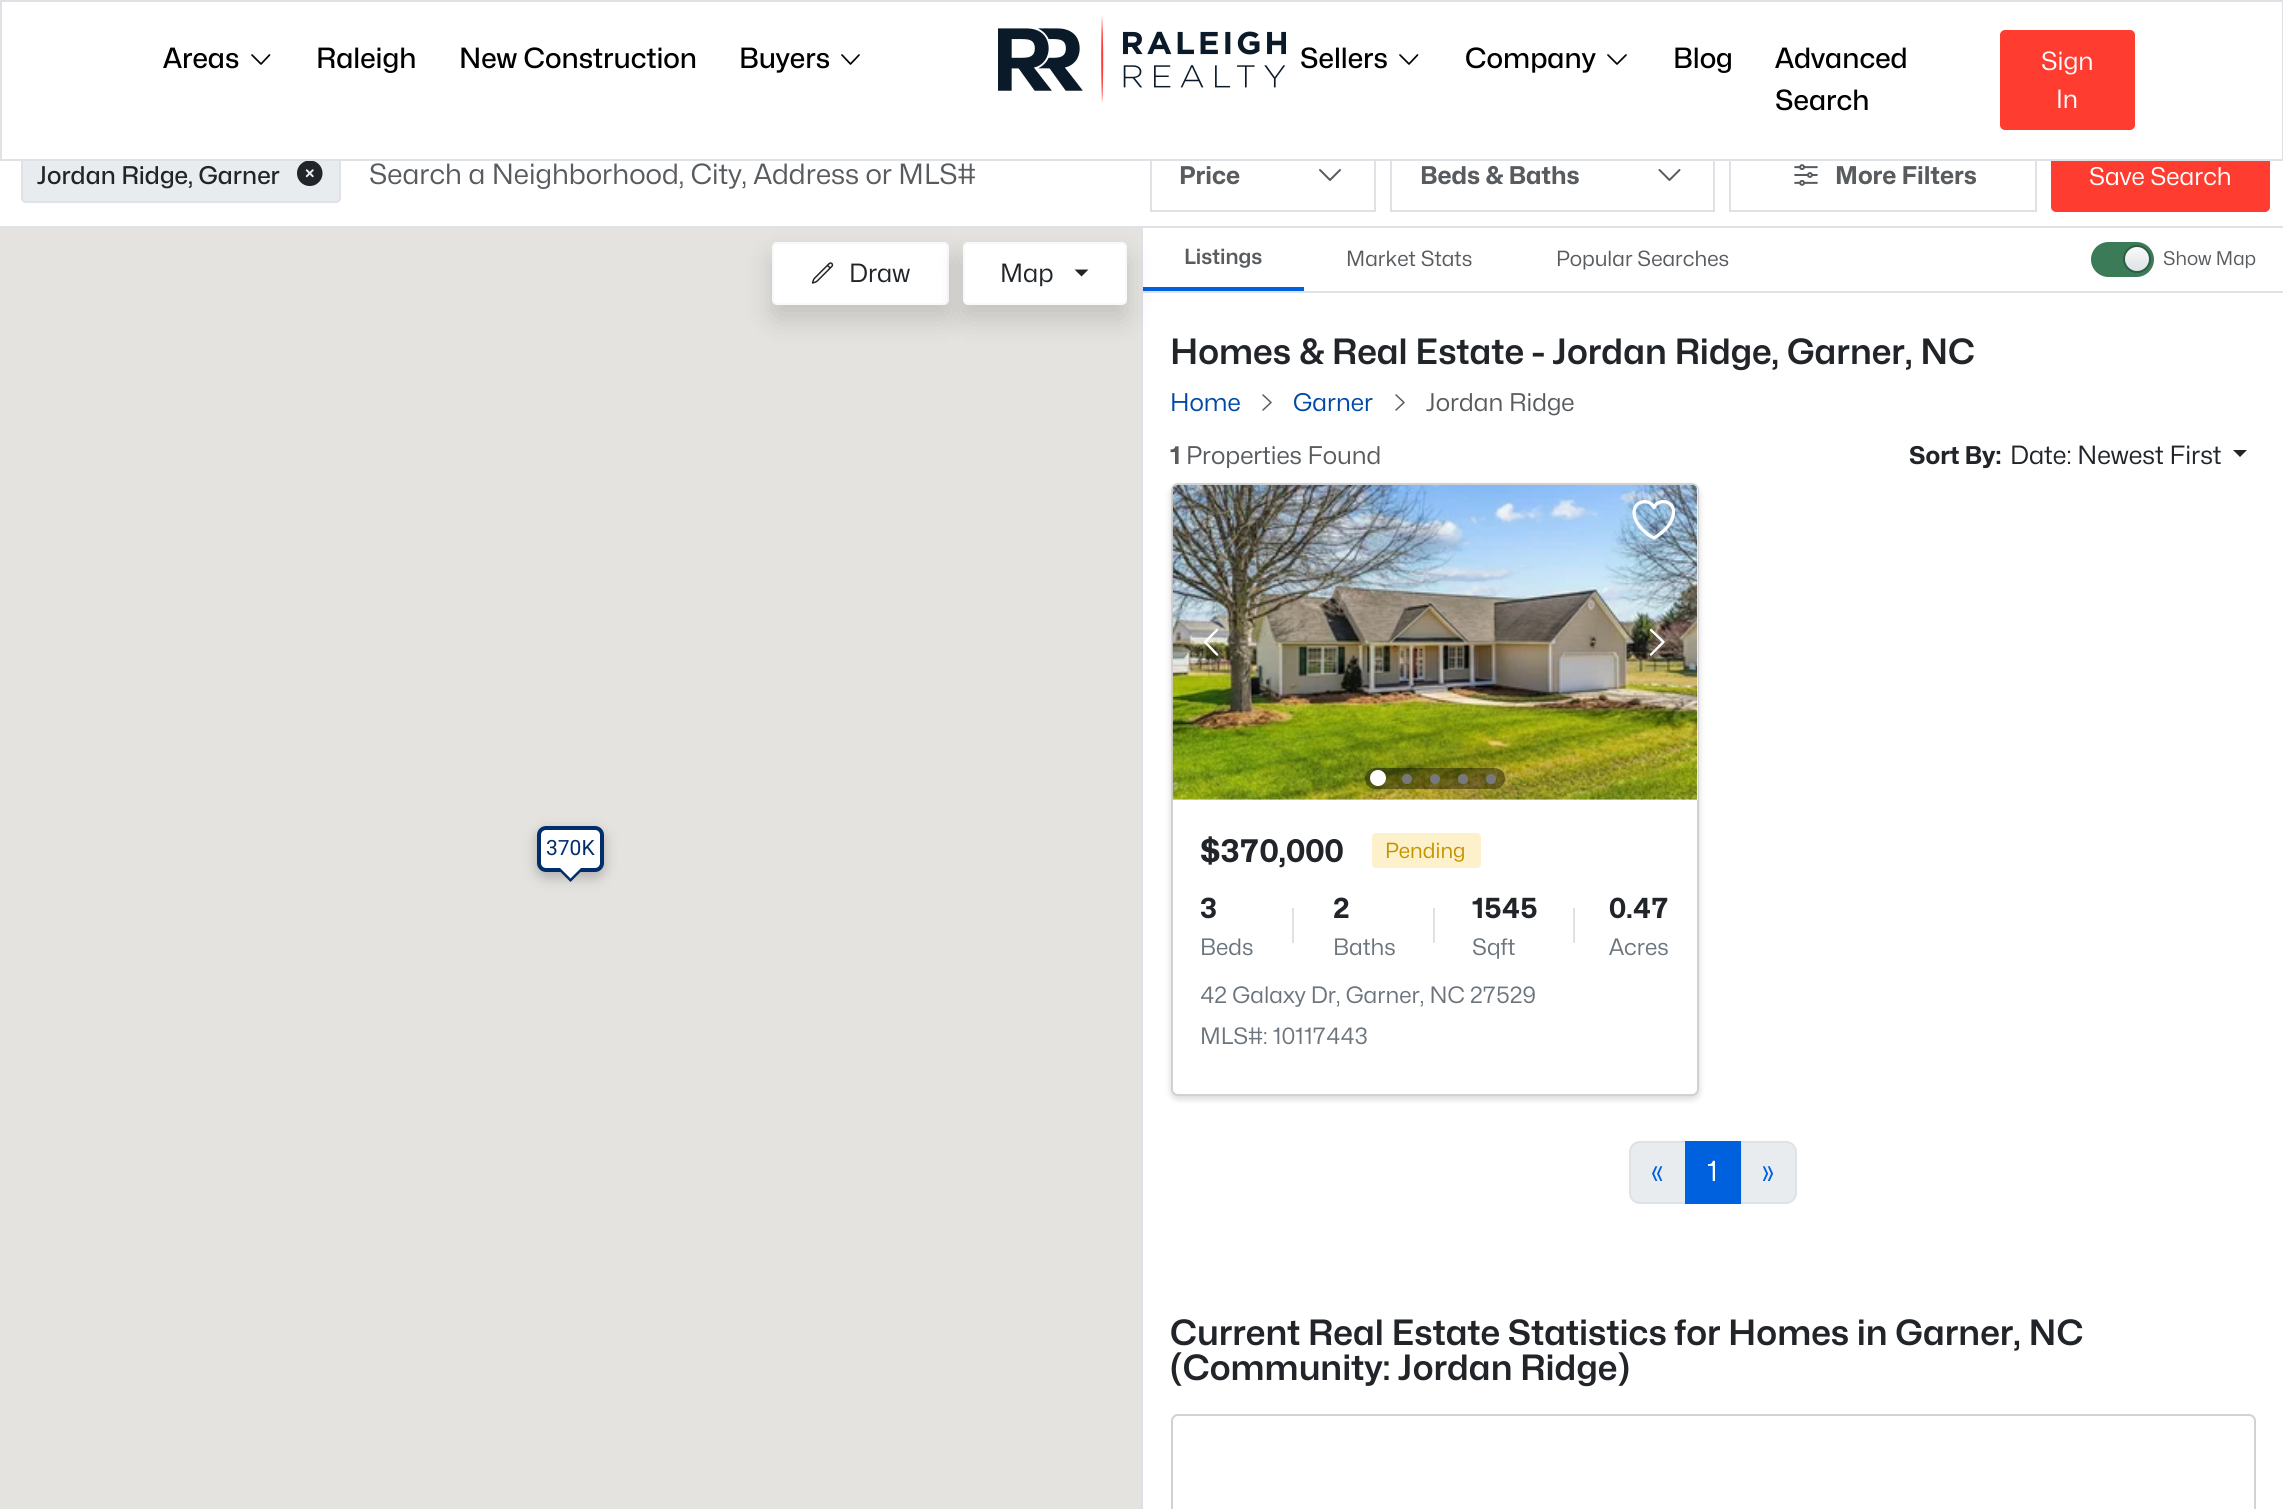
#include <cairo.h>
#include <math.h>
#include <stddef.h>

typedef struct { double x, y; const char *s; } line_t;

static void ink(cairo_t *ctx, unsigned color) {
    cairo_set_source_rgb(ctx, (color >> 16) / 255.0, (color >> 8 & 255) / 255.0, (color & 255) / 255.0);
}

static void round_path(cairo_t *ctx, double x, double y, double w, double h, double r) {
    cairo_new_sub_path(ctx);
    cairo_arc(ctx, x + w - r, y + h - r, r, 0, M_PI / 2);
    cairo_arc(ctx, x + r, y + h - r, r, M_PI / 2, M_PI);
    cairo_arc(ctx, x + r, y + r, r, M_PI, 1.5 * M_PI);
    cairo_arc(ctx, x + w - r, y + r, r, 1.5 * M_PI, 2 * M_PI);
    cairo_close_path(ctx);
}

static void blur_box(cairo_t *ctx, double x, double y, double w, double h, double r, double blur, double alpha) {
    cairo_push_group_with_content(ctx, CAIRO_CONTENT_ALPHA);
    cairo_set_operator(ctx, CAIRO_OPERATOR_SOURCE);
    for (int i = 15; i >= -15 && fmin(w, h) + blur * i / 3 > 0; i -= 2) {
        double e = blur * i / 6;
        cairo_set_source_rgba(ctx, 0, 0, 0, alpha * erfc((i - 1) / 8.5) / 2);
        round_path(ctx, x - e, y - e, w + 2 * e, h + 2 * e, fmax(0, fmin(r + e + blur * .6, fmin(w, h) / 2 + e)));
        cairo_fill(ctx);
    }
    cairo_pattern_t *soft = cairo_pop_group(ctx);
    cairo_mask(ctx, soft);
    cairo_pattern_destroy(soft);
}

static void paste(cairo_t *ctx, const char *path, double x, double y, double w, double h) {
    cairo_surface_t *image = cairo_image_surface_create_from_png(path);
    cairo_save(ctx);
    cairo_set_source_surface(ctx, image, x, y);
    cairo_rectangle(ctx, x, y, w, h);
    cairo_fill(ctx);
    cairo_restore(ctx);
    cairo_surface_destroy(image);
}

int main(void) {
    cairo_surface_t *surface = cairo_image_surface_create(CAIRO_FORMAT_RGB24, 2283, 1509);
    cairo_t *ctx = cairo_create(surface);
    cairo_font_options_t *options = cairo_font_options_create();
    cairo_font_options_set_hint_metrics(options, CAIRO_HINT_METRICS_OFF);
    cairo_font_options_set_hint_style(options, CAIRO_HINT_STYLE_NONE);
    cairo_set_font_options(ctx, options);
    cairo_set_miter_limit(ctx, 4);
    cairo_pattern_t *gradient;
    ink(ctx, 0xFFFFFF);
    cairo_paint(ctx);
    ink(ctx, 0xE9ECEF);
    round_path(ctx, 22, 148, 318, 54, 4);
    cairo_fill_preserve(ctx);
    ink(ctx, 0xDEE2E6);
    cairo_stroke(ctx);
    cairo_rectangle(ctx, 1151, 139, 224, 72);
    cairo_stroke(ctx);
    cairo_rectangle(ctx, 1391, 139, 323, 72);
    cairo_stroke(ctx);
    cairo_rectangle(ctx, 1730, 139, 306, 72);
    cairo_stroke(ctx);
    ink(ctx, 0xFE3C30);
    round_path(ctx, 2052, 139, 217, 72, 4);
    cairo_fill_preserve(ctx);
    cairo_stroke(ctx);
    ink(ctx, 0xFFFFFF);
    cairo_rectangle(ctx, 21, 138, 2249, 21);
    cairo_fill(ctx);
    cairo_rectangle(ctx, 1, 1, 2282, 159);
    ink(ctx, 0xDEE2E6);
    cairo_stroke(ctx);
    cairo_select_font_face(ctx, "Mona Sans Medium", CAIRO_FONT_SLANT_NORMAL, CAIRO_FONT_WEIGHT_NORMAL);
    cairo_set_font_size(ctx, 28);
    ink(ctx, 0x000000);
    cairo_move_to(ctx, 163, 68);
    cairo_show_text(ctx, "Areas");
    cairo_new_path(ctx);
    cairo_move_to(ctx, 269.5, 55);
    cairo_line_to(ctx, 261, 64);
    cairo_line_to(ctx, 252, 55);
    cairo_set_line_width(ctx, 1.7);
    cairo_set_line_cap(ctx, CAIRO_LINE_CAP_ROUND);
    cairo_set_line_join(ctx, CAIRO_LINE_JOIN_ROUND);
    cairo_stroke(ctx);
    {
        static const line_t items[] = {
            {316, 68, "Raleigh"},
            {459, 68, "New Construction"},
            {739, 68, "Buyers"},
        };
        for (size_t i = 0; i < sizeof items / sizeof *items; i++) {
            cairo_move_to(ctx, items[i].x, items[i].y);
            cairo_show_text(ctx, items[i].s);
        }
    }
    cairo_new_path(ctx);
    cairo_move_to(ctx, 859, 55);
    cairo_line_to(ctx, 850.5, 64);
    cairo_line_to(ctx, 842, 55);
    cairo_stroke(ctx);
    paste(ctx, "media/1.png", 998, 16, 288, 87);
    cairo_move_to(ctx, 1300, 68);
    cairo_show_text(ctx, "Sellers");
    cairo_new_path(ctx);
    cairo_move_to(ctx, 1417.5, 55);
    cairo_line_to(ctx, 1409, 64);
    cairo_line_to(ctx, 1400, 55);
    cairo_stroke(ctx);
    cairo_move_to(ctx, 1465, 68);
    cairo_show_text(ctx, "Company");
    cairo_new_path(ctx);
    cairo_move_to(ctx, 1626, 55);
    cairo_line_to(ctx, 1617, 64);
    cairo_line_to(ctx, 1608, 55);
    cairo_stroke(ctx);
    {
        static const line_t items[] = {
            {1673, 68, "Blog"},
            {1775, 68, "Advanced"},
            {1775, 110, "Search"},
        };
        for (size_t i = 0; i < sizeof items / sizeof *items; i++) {
            cairo_move_to(ctx, items[i].x, items[i].y);
            cairo_show_text(ctx, items[i].s);
        }
    }
    ink(ctx, 0xFE3C30);
    round_path(ctx, 2001, 31, 133, 98, 4);
    cairo_fill_preserve(ctx);
    cairo_set_line_width(ctx, 2);
    cairo_set_line_cap(ctx, CAIRO_LINE_CAP_BUTT);
    cairo_set_line_join(ctx, CAIRO_LINE_JOIN_MITER);
    cairo_stroke(ctx);
    cairo_select_font_face(ctx, "Mona Sans", CAIRO_FONT_SLANT_NORMAL, CAIRO_FONT_WEIGHT_NORMAL);
    cairo_set_font_size(ctx, 25.25);
    ink(ctx, 0xFFFFFF);
    cairo_move_to(ctx, 2041, 70);
    cairo_show_text(ctx, "Sign");
    cairo_move_to(ctx, 2056, 108);
    cairo_show_text(ctx, "In");
    ink(ctx, 0xE5E3DF);
    cairo_rectangle(ctx, 0, 228, 1141, 1281);
    cairo_fill(ctx);
    ink(ctx, 0x000000);
    blur_box(ctx, 772, 256, 177, 63, 5, 14, 0.15);
    ink(ctx, 0xDEE2E6);
    cairo_rectangle(ctx, 1141, 228, 2, 1281);
    cairo_fill(ctx);
    ink(ctx, 0xFFFFFF);
    round_path(ctx, 773, 243, 175, 61, 4);
    cairo_fill_preserve(ctx);
    ink(ctx, 0xF8F9FA);
    cairo_stroke(ctx);
    ink(ctx, 0xDEE2E6);
    cairo_rectangle(ctx, 1143, 291, 1140, 2);
    cairo_fill(ctx);
    ink(ctx, 0x0061DF);
    cairo_rectangle(ctx, 1143, 287, 161, 4);
    cairo_fill(ctx);
    ink(ctx, 0x000000);
    blur_box(ctx, 963, 256, 164, 63, 5, 14, 0.15);
    ink(ctx, 0xDEE2E6);
    cairo_rectangle(ctx, 0, 226, 2283, 2);
    cairo_fill(ctx);
    cairo_select_font_face(ctx, "Mona Sans Medium", CAIRO_FONT_SLANT_NORMAL, CAIRO_FONT_WEIGHT_NORMAL);
    cairo_set_font_size(ctx, 24.5);
    ink(ctx, 0x212529);
    cairo_move_to(ctx, 37, 184);
    cairo_show_text(ctx, "Jordan Ridge, Garner");
    paste(ctx, "media/2.png", 297, 161, 26, 25);
    cairo_select_font_face(ctx, "Mona Sans", CAIRO_FONT_SLANT_NORMAL, CAIRO_FONT_WEIGHT_NORMAL);
    cairo_set_font_size(ctx, 28);
    ink(ctx, 0x595C5F);
    cairo_move_to(ctx, 369, 184);
    cairo_show_text(ctx, "Search a Neighborhood, City, Address or MLS#");
    cairo_select_font_face(ctx, "Mona Sans", CAIRO_FONT_SLANT_NORMAL, CAIRO_FONT_WEIGHT_BOLD);
    cairo_set_font_size(ctx, 24.5);
    cairo_move_to(ctx, 1179, 184);
    cairo_show_text(ctx, "Price");
    cairo_new_path(ctx);
    cairo_move_to(ctx, 1340, 170);
    cairo_line_to(ctx, 1330, 180);
    cairo_line_to(ctx, 1320, 170);
    cairo_set_line_cap(ctx, CAIRO_LINE_CAP_ROUND);
    cairo_set_line_join(ctx, CAIRO_LINE_JOIN_ROUND);
    cairo_stroke(ctx);
    cairo_move_to(ctx, 1420, 184);
    cairo_show_text(ctx, "Beds & Baths");
    cairo_new_path(ctx);
    cairo_move_to(ctx, 1679.5, 170);
    cairo_line_to(ctx, 1669.5, 180);
    cairo_line_to(ctx, 1659.5, 170);
    cairo_stroke(ctx);
    paste(ctx, "media/3.png", 1794, 164, 24, 22);
    cairo_move_to(ctx, 1835, 184);
    cairo_show_text(ctx, "More Filters");
    cairo_select_font_face(ctx, "Mona Sans", CAIRO_FONT_SLANT_NORMAL, CAIRO_FONT_WEIGHT_NORMAL);
    ink(ctx, 0xFFFFFF);
    cairo_move_to(ctx, 2089, 185);
    cairo_show_text(ctx, "Save Search");
    paste(ctx, "media/4.png", 811, 262, 23, 22);
    cairo_set_font_size(ctx, 25.25);
    ink(ctx, 0x212529);
    cairo_move_to(ctx, 849, 282);
    cairo_show_text(ctx, "Draw");
    ink(ctx, 0xFFFFFF);
    round_path(ctx, 964, 243, 162, 61, 4);
    cairo_fill_preserve(ctx);
    ink(ctx, 0xF8F9FA);
    cairo_set_line_cap(ctx, CAIRO_LINE_CAP_BUTT);
    cairo_set_line_join(ctx, CAIRO_LINE_JOIN_MITER);
    cairo_stroke(ctx);
    ink(ctx, 0x212529);
    cairo_move_to(ctx, 1000, 282);
    cairo_show_text(ctx, "Map");
    cairo_new_path(ctx);
    cairo_move_to(ctx, 1074.5, 269.5);
    cairo_line_to(ctx, 1088.5, 269.5);
    cairo_line_to(ctx, 1081.5, 276.5);
    cairo_close_path(ctx);
    cairo_fill(ctx);
    ink(ctx, 0x000000);
    blur_box(ctx, 537, 831, 67, 46, 9, 7, 0.24);
    ink(ctx, 0xFFFFFF);
    round_path(ctx, 539, 828, 63, 42, 7);
    cairo_fill_preserve(ctx);
    ink(ctx, 0x002E6A);
    cairo_set_line_width(ctx, 4);
    cairo_stroke(ctx);
    cairo_select_font_face(ctx, "Roboto", CAIRO_FONT_SLANT_NORMAL, CAIRO_FONT_WEIGHT_NORMAL);
    cairo_set_font_size(ctx, 21);
    cairo_move_to(ctx, 546, 855);
    cairo_show_text(ctx, "370K");
    cairo_new_path(ctx);
    cairo_move_to(ctx, 556.5, 868);
    cairo_line_to(ctx, 584.5, 868);
    cairo_line_to(ctx, 570.5, 882);
    cairo_close_path(ctx);
    cairo_fill(ctx);
    ink(ctx, 0xFFFFFF);
    cairo_new_path(ctx);
    cairo_move_to(ctx, 560, 868);
    cairo_line_to(ctx, 581, 868);
    cairo_line_to(ctx, 570.5, 878.5);
    cairo_close_path(ctx);
    cairo_fill(ctx);
    cairo_select_font_face(ctx, "Mona Sans SemiBold", CAIRO_FONT_SLANT_NORMAL, CAIRO_FONT_WEIGHT_NORMAL);
    ink(ctx, 0x595C5F);
    cairo_move_to(ctx, 1184, 264);
    cairo_show_text(ctx, "Listings");
    cairo_select_font_face(ctx, "Mona Sans", CAIRO_FONT_SLANT_NORMAL, CAIRO_FONT_WEIGHT_NORMAL);
    cairo_move_to(ctx, 1346, 266);
    cairo_show_text(ctx, "Market Stats");
    cairo_move_to(ctx, 1556, 266);
    cairo_show_text(ctx, "Popular Searches");
    ink(ctx, 0x3C7B58);
    round_path(ctx, 2091, 242, 63, 35, 17.5);
    cairo_fill(ctx);
    cairo_arc(ctx, 2137, 259, 13, 0, 2 * M_PI);
    ink(ctx, 0x2D5C42);
    cairo_set_line_width(ctx, 2);
    cairo_stroke(ctx);
    gradient = cairo_pattern_create_linear(2137, 247, 2137, 271);
    cairo_pattern_add_color_stop_rgba(gradient, 0, 0.973, 0.976, 0.98, 1);
    cairo_pattern_add_color_stop_rgba(gradient, 1, 0.871, 0.886, 0.902, 1);
    cairo_set_source(ctx, gradient);
    cairo_pattern_destroy(gradient);
    cairo_arc(ctx, 2137, 259, 12, 0, 2 * M_PI);
    cairo_fill(ctx);
    cairo_set_font_size(ctx, 19);
    ink(ctx, 0x595C5F);
    cairo_move_to(ctx, 2163, 265);
    cairo_show_text(ctx, "Show Map");
    cairo_select_font_face(ctx, "Mona Sans SemiBold", CAIRO_FONT_SLANT_NORMAL, CAIRO_FONT_WEIGHT_NORMAL);
    cairo_set_font_size(ctx, 35);
    ink(ctx, 0x212529);
    cairo_move_to(ctx, 1170, 364);
    cairo_show_text(ctx, "Homes & Real Estate - Jordan Ridge, Garner, NC");
    cairo_select_font_face(ctx, "Mona Sans", CAIRO_FONT_SLANT_NORMAL, CAIRO_FONT_WEIGHT_NORMAL);
    cairo_set_font_size(ctx, 24.5);
    ink(ctx, 0x0049A7);
    cairo_move_to(ctx, 1170, 411);
    cairo_show_text(ctx, "Home");
    cairo_new_path(ctx);
    cairo_move_to(ctx, 1263, 395);
    cairo_line_to(ctx, 1271, 402.5);
    cairo_line_to(ctx, 1263, 410);
    ink(ctx, 0x595C5F);
    cairo_set_line_width(ctx, 1.5);
    cairo_set_line_cap(ctx, CAIRO_LINE_CAP_ROUND);
    cairo_set_line_join(ctx, CAIRO_LINE_JOIN_ROUND);
    cairo_stroke(ctx);
    ink(ctx, 0x0049A7);
    cairo_move_to(ctx, 1293, 411);
    cairo_show_text(ctx, "Garner");
    cairo_new_path(ctx);
    cairo_move_to(ctx, 1396, 395);
    cairo_line_to(ctx, 1404, 402.5);
    cairo_line_to(ctx, 1396, 410);
    ink(ctx, 0x595C5F);
    cairo_stroke(ctx);
    cairo_move_to(ctx, 1426, 411);
    cairo_show_text(ctx, "Jordan Ridge");
    cairo_select_font_face(ctx, "Mona Sans", CAIRO_FONT_SLANT_NORMAL, CAIRO_FONT_WEIGHT_BOLD);
    cairo_move_to(ctx, 1170, 464);
    cairo_show_text(ctx, "1");
    cairo_select_font_face(ctx, "Mona Sans", CAIRO_FONT_SLANT_NORMAL, CAIRO_FONT_WEIGHT_NORMAL);
    cairo_move_to(ctx, 1186, 464);
    cairo_show_text(ctx, "Properties Found");
    cairo_select_font_face(ctx, "Mona Sans", CAIRO_FONT_SLANT_NORMAL, CAIRO_FONT_WEIGHT_BOLD);
    ink(ctx, 0x212529);
    cairo_move_to(ctx, 1909, 464);
    cairo_show_text(ctx, "Sort By:");
    cairo_select_font_face(ctx, "Mona Sans", CAIRO_FONT_SLANT_NORMAL, CAIRO_FONT_WEIGHT_NORMAL);
    cairo_set_font_size(ctx, 25.25);
    cairo_move_to(ctx, 2010, 464);
    cairo_show_text(ctx, "Date: Newest First");
    cairo_new_path(ctx);
    cairo_move_to(ctx, 2233, 450);
    cairo_line_to(ctx, 2247, 450);
    cairo_line_to(ctx, 2240, 457);
    cairo_close_path(ctx);
    cairo_fill(ctx);
    ink(ctx, 0x000000);
    blur_box(ctx, 1171, 487, 528, 612, 7, 3.5, 0.16);
    ink(ctx, 0xFFFFFF);
    round_path(ctx, 1171, 483, 528, 613, 7);
    cairo_fill(ctx);
    round_path(ctx, 1172, 484, 526, 611, 6);
    cairo_set_source_rgba(ctx, 0, 0, 0, 0.18);
    cairo_set_line_width(ctx, 2);
    cairo_set_line_cap(ctx, CAIRO_LINE_CAP_BUTT);
    cairo_set_line_join(ctx, CAIRO_LINE_JOIN_MITER);
    cairo_stroke(ctx);
    ink(ctx, 0xFAFAFA);
    cairo_new_path(ctx);
    cairo_move_to(ctx, 1178, 485);
    cairo_line_to(ctx, 1693, 485);
    cairo_curve_to(ctx, 1696, 485, 1698, 487, 1698, 490);
    cairo_line_to(ctx, 1698, 800);
    cairo_line_to(ctx, 1173, 800);
    cairo_line_to(ctx, 1173, 490);
    cairo_curve_to(ctx, 1173, 487, 1175, 485, 1178, 485);
    cairo_close_path(ctx);
    cairo_fill(ctx);
    paste(ctx, "media/6.png", 1172, 493, 1, 307);
    paste(ctx, "media/5.png", 1172, 485, 526, 315);
    cairo_new_path(ctx);
    cairo_move_to(ctx, 1217, 654.5);
    cairo_line_to(ctx, 1205, 642);
    cairo_line_to(ctx, 1217, 630);
    ink(ctx, 0xFFFFFF);
    cairo_set_line_width(ctx, 2.4);
    cairo_set_line_cap(ctx, CAIRO_LINE_CAP_ROUND);
    cairo_set_line_join(ctx, CAIRO_LINE_JOIN_ROUND);
    cairo_stroke(ctx);
    cairo_new_path(ctx);
    cairo_move_to(ctx, 1651, 630);
    cairo_line_to(ctx, 1663.5, 642);
    cairo_line_to(ctx, 1651, 654.5);
    cairo_stroke(ctx);
    cairo_set_source_rgba(ctx, 0, 0, 0, 0.4);
    round_path(ctx, 1365, 768, 140, 21, 10.5);
    cairo_fill(ctx);
    ink(ctx, 0xFFFFFF);
    cairo_arc(ctx, 1378, 778, 8, 0, 2 * M_PI);
    cairo_fill(ctx);
    ink(ctx, 0x78797C);
    cairo_arc(ctx, 1407, 779, 5, 0, 2 * M_PI);
    cairo_fill(ctx);
    cairo_arc(ctx, 1435, 779, 5, 0, 2 * M_PI);
    cairo_fill(ctx);
    cairo_arc(ctx, 1463, 779, 5, 0, 2 * M_PI);
    cairo_fill(ctx);
    cairo_arc(ctx, 1491, 779, 5, 0, 2 * M_PI);
    cairo_fill(ctx);
    cairo_new_path(ctx);
    cairo_move_to(ctx, 1673.5, 511.5);
    cairo_curve_to(ctx, 1673.5, 500.5, 1658, 498, 1654, 507.5);
    cairo_curve_to(ctx, 1648.5, 495.5, 1626, 502.5, 1637, 522.5);
    cairo_curve_to(ctx, 1641, 529, 1647, 534.5, 1654, 538);
    cairo_curve_to(ctx, 1654, 538, 1673.5, 527.5, 1673.5, 511.5);
    cairo_close_path(ctx);
    ink(ctx, 0xFFFFFF);
    cairo_set_line_width(ctx, 3.3);
    cairo_stroke(ctx);
    cairo_select_font_face(ctx, "Mona Sans", CAIRO_FONT_SLANT_NORMAL, CAIRO_FONT_WEIGHT_BOLD);
    cairo_set_font_size(ctx, 31.5);
    ink(ctx, 0x212529);
    cairo_move_to(ctx, 1200, 862);
    cairo_show_text(ctx, "$370,000");
    ink(ctx, 0xFDF1CC);
    round_path(ctx, 1372, 833, 109, 35, 4);
    cairo_fill(ctx);
    cairo_select_font_face(ctx, "Mona Sans", CAIRO_FONT_SLANT_NORMAL, CAIRO_FONT_WEIGHT_NORMAL);
    cairo_set_font_size(ctx, 21);
    ink(ctx, 0xC49300);
    cairo_move_to(ctx, 1385, 858);
    cairo_show_text(ctx, "Pending");
    cairo_select_font_face(ctx, "Mona Sans", CAIRO_FONT_SLANT_NORMAL, CAIRO_FONT_WEIGHT_BOLD);
    cairo_set_font_size(ctx, 28);
    ink(ctx, 0x212529);
    cairo_move_to(ctx, 1200, 918);
    cairo_show_text(ctx, "3");
    ink(ctx, 0xDEE2E6);
    cairo_rectangle(ctx, 1292, 908, 2, 35);
    cairo_fill(ctx);
    cairo_select_font_face(ctx, "Mona Sans", CAIRO_FONT_SLANT_NORMAL, CAIRO_FONT_WEIGHT_NORMAL);
    cairo_set_font_size(ctx, 22.75);
    ink(ctx, 0x6C757D);
    cairo_move_to(ctx, 1200, 955);
    cairo_show_text(ctx, "Beds");
    cairo_select_font_face(ctx, "Mona Sans", CAIRO_FONT_SLANT_NORMAL, CAIRO_FONT_WEIGHT_BOLD);
    cairo_set_font_size(ctx, 28);
    ink(ctx, 0x212529);
    cairo_move_to(ctx, 1333, 918);
    cairo_show_text(ctx, "2");
    cairo_select_font_face(ctx, "Mona Sans", CAIRO_FONT_SLANT_NORMAL, CAIRO_FONT_WEIGHT_NORMAL);
    cairo_set_font_size(ctx, 22.75);
    ink(ctx, 0x6C757D);
    cairo_move_to(ctx, 1333, 955);
    cairo_show_text(ctx, "Baths");
    ink(ctx, 0xDEE2E6);
    cairo_rectangle(ctx, 1433, 908, 2, 35);
    cairo_fill(ctx);
    cairo_select_font_face(ctx, "Mona Sans", CAIRO_FONT_SLANT_NORMAL, CAIRO_FONT_WEIGHT_BOLD);
    cairo_set_font_size(ctx, 28);
    ink(ctx, 0x212529);
    cairo_move_to(ctx, 1472, 918);
    cairo_show_text(ctx, "1545");
    cairo_select_font_face(ctx, "Mona Sans", CAIRO_FONT_SLANT_NORMAL, CAIRO_FONT_WEIGHT_NORMAL);
    cairo_set_font_size(ctx, 22.75);
    ink(ctx, 0x6C757D);
    cairo_move_to(ctx, 1472, 955);
    cairo_show_text(ctx, "Sqft");
    ink(ctx, 0xDEE2E6);
    cairo_rectangle(ctx, 1573, 908, 2, 35);
    cairo_fill(ctx);
    cairo_select_font_face(ctx, "Mona Sans", CAIRO_FONT_SLANT_NORMAL, CAIRO_FONT_WEIGHT_BOLD);
    cairo_set_font_size(ctx, 28);
    ink(ctx, 0x212529);
    cairo_move_to(ctx, 1609, 918);
    cairo_show_text(ctx, "0.47");
    cairo_select_font_face(ctx, "Mona Sans", CAIRO_FONT_SLANT_NORMAL, CAIRO_FONT_WEIGHT_NORMAL);
    cairo_set_font_size(ctx, 22.75);
    ink(ctx, 0x6C757D);
    {
        static const line_t items[] = {
            {1609, 955, "Acres"},
            {1200, 1003, "42 Galaxy Dr, Garner, NC 27529"},
            {1200, 1044, "MLS#: 10117443"},
        };
        for (size_t i = 0; i < sizeof items / sizeof *items; i++) {
            cairo_move_to(ctx, items[i].x, items[i].y);
            cairo_show_text(ctx, items[i].s);
        }
    }
    ink(ctx, 0xE9ECEF);
    cairo_new_path(ctx);
    cairo_move_to(ctx, 1640, 1142);
    cairo_line_to(ctx, 1686, 1142);
    cairo_line_to(ctx, 1686, 1203);
    cairo_line_to(ctx, 1640, 1203);
    cairo_curve_to(ctx, 1634.5, 1203, 1630, 1198.5, 1630, 1193);
    cairo_line_to(ctx, 1630, 1152);
    cairo_curve_to(ctx, 1630, 1146.5, 1634.5, 1142, 1640, 1142);
    cairo_close_path(ctx);
    cairo_fill_preserve(ctx);
    ink(ctx, 0xDEE2E6);
    cairo_set_line_width(ctx, 2);
    cairo_set_line_cap(ctx, CAIRO_LINE_CAP_BUTT);
    cairo_set_line_join(ctx, CAIRO_LINE_JOIN_MITER);
    cairo_stroke(ctx);
    cairo_set_font_size(ctx, 28);
    ink(ctx, 0x0061DF);
    cairo_move_to(ctx, 1651, 1181);
    cairo_show_text(ctx, "«");
    ink(ctx, 0xE9ECEF);
    cairo_new_path(ctx);
    cairo_move_to(ctx, 1741, 1142);
    cairo_line_to(ctx, 1786, 1142);
    cairo_curve_to(ctx, 1791.5, 1142, 1796, 1146.5, 1796, 1152);
    cairo_line_to(ctx, 1796, 1193);
    cairo_curve_to(ctx, 1796, 1198.5, 1791.5, 1203, 1786, 1203);
    cairo_line_to(ctx, 1741, 1203);
    cairo_close_path(ctx);
    cairo_fill_preserve(ctx);
    ink(ctx, 0xDEE2E6);
    cairo_stroke(ctx);
    ink(ctx, 0x0061DF);
    cairo_rectangle(ctx, 1685, 1141, 56, 63);
    cairo_fill(ctx);
    ink(ctx, 0xFFFFFF);
    cairo_move_to(ctx, 1707, 1181);
    cairo_show_text(ctx, "1");
    ink(ctx, 0x0061DF);
    cairo_move_to(ctx, 1762, 1181);
    cairo_show_text(ctx, "»");
    cairo_select_font_face(ctx, "Mona Sans SemiBold", CAIRO_FONT_SLANT_NORMAL, CAIRO_FONT_WEIGHT_NORMAL);
    cairo_set_font_size(ctx, 35);
    ink(ctx, 0x212529);
    cairo_move_to(ctx, 1170, 1345);
    cairo_show_text(ctx, "Current Real Estate Statistics for Homes in Garner, NC");
    cairo_move_to(ctx, 1170, 1380);
    cairo_show_text(ctx, "(Community: Jordan Ridge)");
    round_path(ctx, 1172, 1415, 1083, 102, 6);
    ink(ctx, 0xD2D2D2);
    cairo_stroke(ctx);
    cairo_surface_write_to_png(surface, "image.png");
    cairo_font_options_destroy(options);
    cairo_destroy(ctx);
    cairo_surface_destroy(surface);
    return 0;
}
